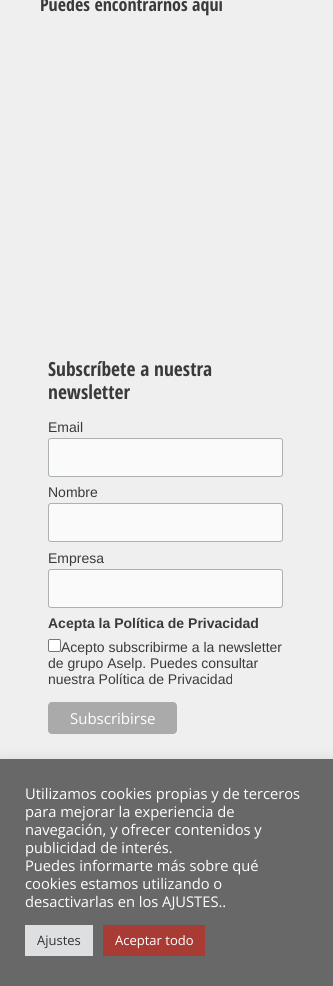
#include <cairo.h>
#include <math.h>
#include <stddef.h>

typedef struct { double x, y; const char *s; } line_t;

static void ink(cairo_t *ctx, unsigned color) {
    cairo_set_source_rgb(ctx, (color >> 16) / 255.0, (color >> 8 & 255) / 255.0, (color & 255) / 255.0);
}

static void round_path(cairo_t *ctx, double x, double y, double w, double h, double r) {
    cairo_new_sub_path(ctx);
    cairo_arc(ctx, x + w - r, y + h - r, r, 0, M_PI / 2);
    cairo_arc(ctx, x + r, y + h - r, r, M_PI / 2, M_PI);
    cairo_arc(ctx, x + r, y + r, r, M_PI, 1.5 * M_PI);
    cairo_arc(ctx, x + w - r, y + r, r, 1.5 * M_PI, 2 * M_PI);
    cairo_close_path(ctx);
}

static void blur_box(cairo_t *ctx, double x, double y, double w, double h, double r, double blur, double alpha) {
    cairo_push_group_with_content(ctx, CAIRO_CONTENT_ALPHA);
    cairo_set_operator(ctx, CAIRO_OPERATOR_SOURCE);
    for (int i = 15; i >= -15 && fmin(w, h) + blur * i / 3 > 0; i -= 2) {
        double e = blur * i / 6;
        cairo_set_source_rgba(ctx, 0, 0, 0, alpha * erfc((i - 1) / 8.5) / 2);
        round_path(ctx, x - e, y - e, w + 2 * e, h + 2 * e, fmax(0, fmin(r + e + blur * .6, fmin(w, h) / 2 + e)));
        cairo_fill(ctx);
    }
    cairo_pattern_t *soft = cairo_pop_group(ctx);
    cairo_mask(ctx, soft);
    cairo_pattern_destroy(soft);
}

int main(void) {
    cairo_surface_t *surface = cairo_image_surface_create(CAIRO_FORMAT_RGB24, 333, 986);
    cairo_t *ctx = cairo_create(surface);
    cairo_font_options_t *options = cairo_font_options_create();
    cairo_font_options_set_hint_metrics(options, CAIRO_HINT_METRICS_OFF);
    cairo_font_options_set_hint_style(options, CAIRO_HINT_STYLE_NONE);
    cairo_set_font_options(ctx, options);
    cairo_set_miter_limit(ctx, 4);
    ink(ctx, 0xEFEFEF);
    cairo_paint(ctx);
    cairo_select_font_face(ctx, "Open Sans Condensed", CAIRO_FONT_SLANT_NORMAL, CAIRO_FONT_WEIGHT_BOLD);
    cairo_set_font_size(ctx, 18);
    ink(ctx, 0x3A3A3A);
    cairo_move_to(ctx, 40, 11);
    cairo_show_text(ctx, "Puedes encontrarnos aquí");
    cairo_set_font_size(ctx, 19.5);
    cairo_move_to(ctx, 48, 376);
    cairo_show_text(ctx, "Subscríbete a nuestra");
    cairo_move_to(ctx, 48, 399);
    cairo_show_text(ctx, "newsletter");
    cairo_select_font_face(ctx, "Liberation Sans", CAIRO_FONT_SLANT_NORMAL, CAIRO_FONT_WEIGHT_NORMAL);
    cairo_set_font_size(ctx, 14);
    cairo_move_to(ctx, 48, 432);
    cairo_show_text(ctx, "Email");
    ink(ctx, 0xFAFAFA);
    round_path(ctx, 48.5, 438.5, 234, 38, 2.5);
    cairo_fill_preserve(ctx);
    ink(ctx, 0xABB0B2);
    cairo_set_line_width(ctx, 1);
    cairo_stroke(ctx);
    ink(ctx, 0x3A3A3A);
    cairo_move_to(ctx, 48, 497);
    cairo_show_text(ctx, "Nombre");
    ink(ctx, 0xFAFAFA);
    round_path(ctx, 48.5, 503.5, 234, 38, 2.5);
    cairo_fill_preserve(ctx);
    ink(ctx, 0xABB0B2);
    cairo_stroke(ctx);
    ink(ctx, 0x3A3A3A);
    cairo_move_to(ctx, 48, 563);
    cairo_show_text(ctx, "Empresa");
    ink(ctx, 0xFAFAFA);
    round_path(ctx, 48.5, 569.5, 234, 38, 2.5);
    cairo_fill_preserve(ctx);
    ink(ctx, 0xABB0B2);
    cairo_stroke(ctx);
    cairo_select_font_face(ctx, "Liberation Sans", CAIRO_FONT_SLANT_NORMAL, CAIRO_FONT_WEIGHT_BOLD);
    ink(ctx, 0x3A3A3A);
    cairo_move_to(ctx, 48, 628);
    cairo_show_text(ctx, "Acepta la Política de Privacidad");
    ink(ctx, 0xFFFFFF);
    round_path(ctx, 48.5, 639.5, 12, 12, 1.5);
    cairo_fill_preserve(ctx);
    ink(ctx, 0x767676);
    cairo_stroke(ctx);
    cairo_select_font_face(ctx, "Liberation Sans", CAIRO_FONT_SLANT_NORMAL, CAIRO_FONT_WEIGHT_NORMAL);
    ink(ctx, 0x3A3A3A);
    {
        static const line_t items[] = {
            {61, 652, "Acepto subscribirme a la newsletter"},
            {48, 668, "de grupo Aselp. Puedes consultar"},
            {48, 684, "nuestra Política de Privacidad"},
        };
        for (size_t i = 0; i < sizeof items / sizeof *items; i++) {
            cairo_move_to(ctx, items[i].x, items[i].y);
            cairo_show_text(ctx, items[i].s);
        }
    }
    ink(ctx, 0xAAAAAA);
    round_path(ctx, 48, 702, 129, 32, 4);
    cairo_fill(ctx);
    cairo_select_font_face(ctx, "Open Sans", CAIRO_FONT_SLANT_NORMAL, CAIRO_FONT_WEIGHT_NORMAL);
    cairo_set_font_size(ctx, 15);
    ink(ctx, 0xFFFFFF);
    cairo_move_to(ctx, 70, 724);
    cairo_show_text(ctx, "Subscribirse");
    ink(ctx, 0xACABAB);
    blur_box(ctx, 0, 758, 333, 227, 0, 5, 0.3);
    ink(ctx, 0x686868);
    cairo_rectangle(ctx, 0, 759, 333, 227);
    cairo_fill(ctx);
    cairo_set_font_size(ctx, 14.7);
    ink(ctx, 0xFFFFFF);
    {
        static const line_t items[] = {
            {25, 799, "Utilizamos cookies propias y de terceros"},
            {25, 817, "para mejorar la experiencia de"},
            {25, 835, "navegación, y ofrecer contenidos y"},
            {25, 853, "publicidad de interés."},
            {25, 871, "Puedes informarte más sobre qué"},
            {25, 889, "cookies estamos utilizando o"},
            {25, 907, "desactivarlas en los AJUSTES.."},
        };
        for (size_t i = 0; i < sizeof items / sizeof *items; i++) {
            cairo_move_to(ctx, items[i].x, items[i].y);
            cairo_show_text(ctx, items[i].s);
        }
    }
    ink(ctx, 0xDEDFE0);
    cairo_rectangle(ctx, 25, 925, 68, 31);
    cairo_fill(ctx);
    cairo_set_font_size(ctx, 13);
    ink(ctx, 0x333333);
    cairo_move_to(ctx, 37, 945);
    cairo_show_text(ctx, "Ajustes");
    ink(ctx, 0xA83C35);
    cairo_rectangle(ctx, 103, 925, 102, 31);
    cairo_fill(ctx);
    ink(ctx, 0xFFFFFF);
    cairo_move_to(ctx, 115, 945);
    cairo_show_text(ctx, "Aceptar todo");
    cairo_surface_write_to_png(surface, "image.png");
    cairo_font_options_destroy(options);
    cairo_destroy(ctx);
    cairo_surface_destroy(surface);
    return 0;
}
